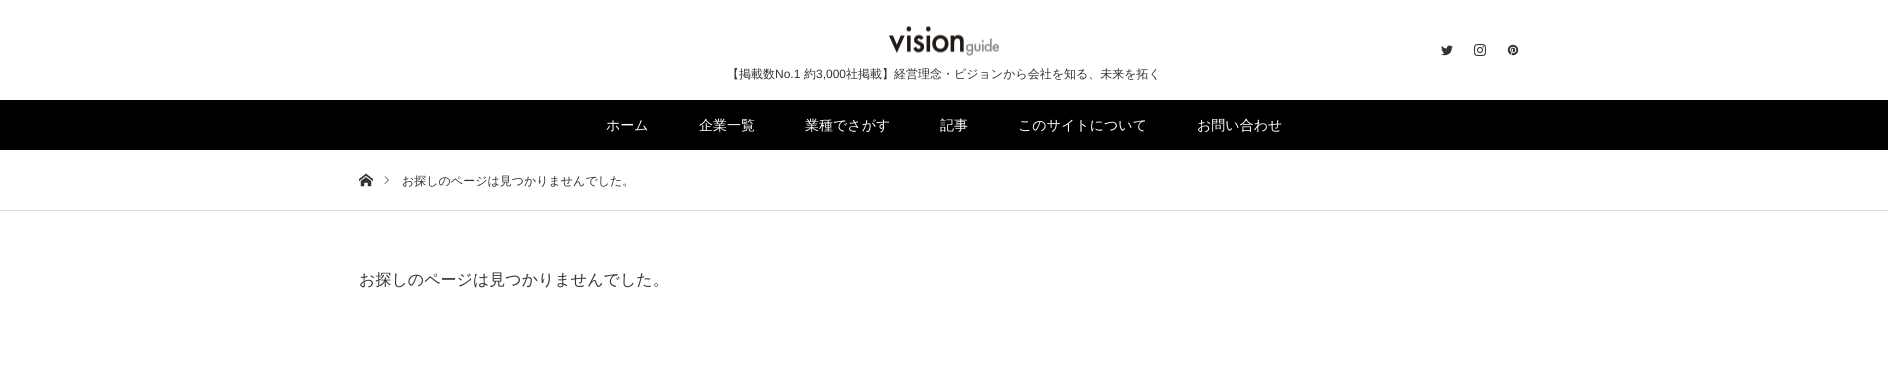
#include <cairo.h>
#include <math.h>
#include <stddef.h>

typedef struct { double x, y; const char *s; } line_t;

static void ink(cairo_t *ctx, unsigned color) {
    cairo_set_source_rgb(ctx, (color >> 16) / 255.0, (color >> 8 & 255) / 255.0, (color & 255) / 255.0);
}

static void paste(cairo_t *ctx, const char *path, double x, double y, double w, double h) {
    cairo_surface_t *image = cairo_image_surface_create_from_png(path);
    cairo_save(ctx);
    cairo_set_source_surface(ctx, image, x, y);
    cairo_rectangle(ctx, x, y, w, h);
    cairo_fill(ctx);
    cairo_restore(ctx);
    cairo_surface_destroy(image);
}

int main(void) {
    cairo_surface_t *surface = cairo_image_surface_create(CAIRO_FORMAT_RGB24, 1888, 392);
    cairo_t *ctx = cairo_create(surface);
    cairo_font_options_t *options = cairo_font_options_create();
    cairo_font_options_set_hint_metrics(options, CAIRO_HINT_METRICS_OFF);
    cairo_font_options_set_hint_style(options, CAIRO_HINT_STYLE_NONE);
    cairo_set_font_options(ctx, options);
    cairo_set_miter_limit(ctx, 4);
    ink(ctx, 0xFFFFFF);
    cairo_paint(ctx);
    paste(ctx, "media/1.png", 1441, 45, 12, 11);
    paste(ctx, "media/2.png", 1474, 44, 12, 12);
    paste(ctx, "media/3.png", 1507, 44, 12, 12);
    paste(ctx, "media/4.png", 889, 26, 111, 30);
    cairo_select_font_face(ctx, "WenQuanYi Zen Hei Medium", CAIRO_FONT_SLANT_NORMAL, CAIRO_FONT_WEIGHT_NORMAL);
    cairo_set_font_size(ctx, 12);
    ink(ctx, 0x333333);
    cairo_move_to(ctx, 727, 78);
    cairo_show_text(ctx, "【掲載数");
    cairo_select_font_face(ctx, "Liberation Sans", CAIRO_FONT_SLANT_NORMAL, CAIRO_FONT_WEIGHT_NORMAL);
    cairo_move_to(ctx, 775, 78);
    cairo_show_text(ctx, "No.1");
    cairo_select_font_face(ctx, "WenQuanYi Zen Hei Medium", CAIRO_FONT_SLANT_NORMAL, CAIRO_FONT_WEIGHT_NORMAL);
    cairo_move_to(ctx, 804, 78);
    cairo_show_text(ctx, "約");
    cairo_select_font_face(ctx, "Liberation Sans", CAIRO_FONT_SLANT_NORMAL, CAIRO_FONT_WEIGHT_NORMAL);
    cairo_move_to(ctx, 816, 78);
    cairo_show_text(ctx, "3,000");
    cairo_select_font_face(ctx, "WenQuanYi Zen Hei Medium", CAIRO_FONT_SLANT_NORMAL, CAIRO_FONT_WEIGHT_NORMAL);
    cairo_move_to(ctx, 846, 78);
    cairo_show_text(ctx, "社掲載】経営理念・ビジョンから会社を知る、未来を拓く");
    ink(ctx, 0x000000);
    cairo_rectangle(ctx, 0, 100, 1888, 50);
    cairo_fill(ctx);
    cairo_set_font_size(ctx, 14);
    ink(ctx, 0xFFFFFF);
    {
        static const line_t items[] = {
            {606, 130, "ホーム"},
            {699, 130, "企業一覧"},
            {805, 130, "業種でさがす"},
            {940, 130, "記事"},
            {1018, 130, "このサイトについて"},
            {1197, 130, "お問い合わせ"},
        };
        for (size_t i = 0; i < sizeof items / sizeof *items; i++) {
            cairo_move_to(ctx, items[i].x, items[i].y);
            cairo_show_text(ctx, items[i].s);
        }
    }
    ink(ctx, 0xDDDDDD);
    cairo_rectangle(ctx, 0, 210, 1888, 1);
    cairo_fill(ctx);
    paste(ctx, "media/5.png", 359, 173, 14, 14);
    paste(ctx, "media/6.png", 384, 176, 5, 8);
    cairo_set_font_size(ctx, 12);
    ink(ctx, 0x333333);
    cairo_move_to(ctx, 402, 185);
    cairo_show_text(ctx, "お探しのページは見つかりませんでした。");
    cairo_set_font_size(ctx, 16);
    cairo_move_to(ctx, 359, 285);
    cairo_show_text(ctx, "お探しのページは見つかりませんでした。");
    cairo_surface_write_to_png(surface, "image.png");
    cairo_font_options_destroy(options);
    cairo_destroy(ctx);
    cairo_surface_destroy(surface);
    return 0;
}
